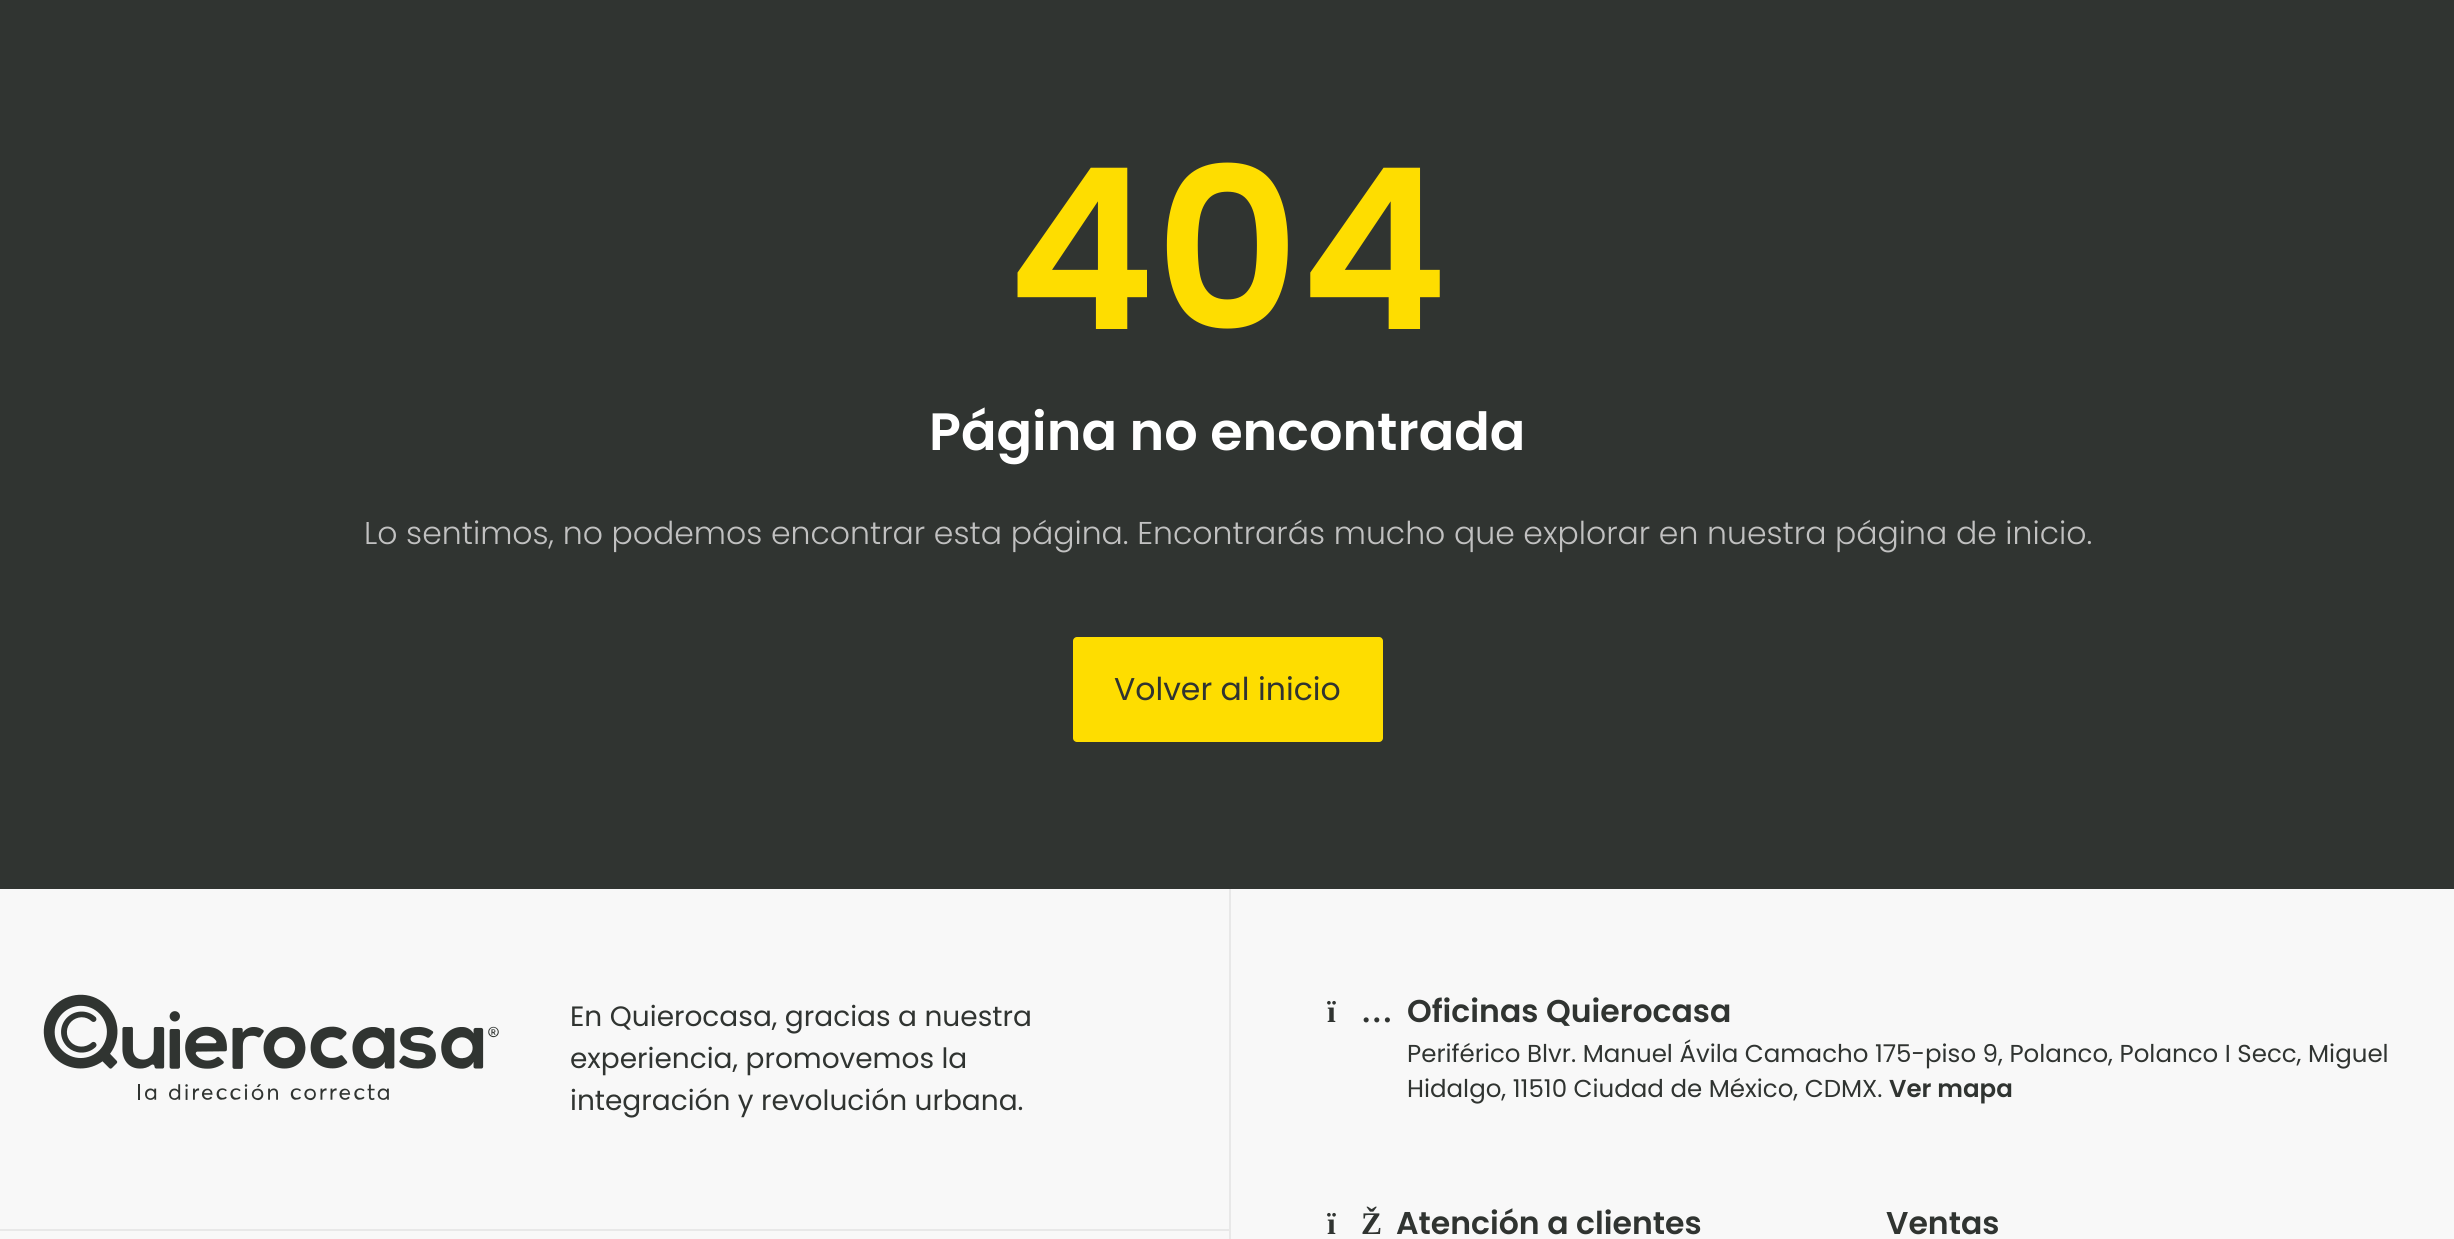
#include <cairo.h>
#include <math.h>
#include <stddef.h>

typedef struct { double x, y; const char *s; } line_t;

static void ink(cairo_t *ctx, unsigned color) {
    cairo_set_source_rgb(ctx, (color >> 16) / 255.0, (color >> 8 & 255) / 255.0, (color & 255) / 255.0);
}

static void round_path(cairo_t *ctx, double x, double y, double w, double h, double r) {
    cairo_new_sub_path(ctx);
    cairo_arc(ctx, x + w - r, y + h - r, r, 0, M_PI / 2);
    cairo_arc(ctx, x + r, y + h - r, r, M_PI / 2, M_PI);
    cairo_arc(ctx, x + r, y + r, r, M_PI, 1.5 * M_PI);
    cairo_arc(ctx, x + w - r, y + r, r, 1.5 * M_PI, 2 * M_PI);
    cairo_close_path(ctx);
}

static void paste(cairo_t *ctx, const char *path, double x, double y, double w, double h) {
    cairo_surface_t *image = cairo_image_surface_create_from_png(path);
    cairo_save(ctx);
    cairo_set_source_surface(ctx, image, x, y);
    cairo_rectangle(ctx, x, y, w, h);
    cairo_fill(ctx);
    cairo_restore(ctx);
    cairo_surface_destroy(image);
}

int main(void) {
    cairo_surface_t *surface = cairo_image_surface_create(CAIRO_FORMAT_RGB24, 2454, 1239);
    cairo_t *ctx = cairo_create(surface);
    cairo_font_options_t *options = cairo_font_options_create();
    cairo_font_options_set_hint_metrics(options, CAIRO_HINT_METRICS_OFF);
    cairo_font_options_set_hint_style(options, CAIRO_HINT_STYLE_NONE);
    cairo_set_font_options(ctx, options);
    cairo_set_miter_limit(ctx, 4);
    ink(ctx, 0x303431);
    cairo_paint(ctx);
    cairo_select_font_face(ctx, "Poppins SemiBold", CAIRO_FONT_SLANT_NORMAL, CAIRO_FONT_WEIGHT_NORMAL);
    cairo_set_font_size(ctx, 224);
    ink(ctx, 0xFEDD00);
    cairo_move_to(ctx, 1007, 329);
    cairo_show_text(ctx, "404");
    cairo_set_font_size(ctx, 52.5);
    ink(ctx, 0xFFFFFF);
    cairo_move_to(ctx, 929, 450);
    cairo_show_text(ctx, "Página no encontrada");
    cairo_select_font_face(ctx, "Poppins Light", CAIRO_FONT_SLANT_NORMAL, CAIRO_FONT_WEIGHT_NORMAL);
    cairo_set_font_size(ctx, 31.5);
    ink(ctx, 0xC1C1C1);
    cairo_move_to(ctx, 364, 544);
    cairo_show_text(ctx, "Lo sentimos, no podemos encontrar esta página. Encontrarás mucho que explorar en nuestra página de inicio.");
    ink(ctx, 0xFEDD00);
    round_path(ctx, 1073, 637, 310, 105, 4);
    cairo_fill(ctx);
    cairo_select_font_face(ctx, "Poppins", CAIRO_FONT_SLANT_NORMAL, CAIRO_FONT_WEIGHT_NORMAL);
    ink(ctx, 0x303431);
    cairo_move_to(ctx, 1114, 700);
    cairo_show_text(ctx, "Volver al inicio");
    ink(ctx, 0xF8F8F8);
    cairo_rectangle(ctx, 0, 889, 2454, 350);
    cairo_fill(ctx);
    ink(ctx, 0xE8E8E8);
    cairo_rectangle(ctx, 0, 1229, 1229, 2);
    cairo_fill(ctx);
    paste(ctx, "media/1.png", 43, 994, 456, 107);
    cairo_set_font_size(ctx, 28);
    ink(ctx, 0x303431);
    {
        static const line_t items[] = {
            {570, 1026, "En Quierocasa, gracias a nuestra"},
            {570, 1068, "experiencia, promovemos la"},
            {570, 1110, "integración y revolución urbana."},
        };
        for (size_t i = 0; i < sizeof items / sizeof *items; i++) {
            cairo_move_to(ctx, items[i].x, items[i].y);
            cairo_show_text(ctx, items[i].s);
        }
    }
    ink(ctx, 0xE8E8E8);
    cairo_rectangle(ctx, 1229, 889, 2, 350);
    cairo_fill(ctx);
    cairo_select_font_face(ctx, "Liberation Serif", CAIRO_FONT_SLANT_NORMAL, CAIRO_FONT_WEIGHT_BOLD);
    cairo_set_font_size(ctx, 31.5);
    ink(ctx, 0x303431);
    cairo_move_to(ctx, 1327, 1022);
    cairo_show_text(ctx, "ï");
    cairo_move_to(ctx, 1361, 1022);
    cairo_show_text(ctx, "…");
    cairo_select_font_face(ctx, "Poppins SemiBold", CAIRO_FONT_SLANT_NORMAL, CAIRO_FONT_WEIGHT_NORMAL);
    cairo_move_to(ctx, 1407, 1022);
    cairo_show_text(ctx, "Oficinas Quierocasa");
    cairo_select_font_face(ctx, "Poppins", CAIRO_FONT_SLANT_NORMAL, CAIRO_FONT_WEIGHT_NORMAL);
    cairo_set_font_size(ctx, 24.5);
    cairo_move_to(ctx, 1407, 1062);
    cairo_show_text(ctx, "Periférico Blvr. Manuel Ávila Camacho 175-piso 9, Polanco, Polanco I Secc, Miguel");
    cairo_move_to(ctx, 1407, 1097);
    cairo_show_text(ctx, "Hidalgo, 11510 Ciudad de México, CDMX.");
    cairo_select_font_face(ctx, "Poppins SemiBold", CAIRO_FONT_SLANT_NORMAL, CAIRO_FONT_WEIGHT_NORMAL);
    cairo_move_to(ctx, 1889, 1097);
    cairo_show_text(ctx, "Ver mapa");
    cairo_select_font_face(ctx, "Liberation Serif", CAIRO_FONT_SLANT_NORMAL, CAIRO_FONT_WEIGHT_BOLD);
    cairo_set_font_size(ctx, 31.5);
    cairo_move_to(ctx, 1327, 1234);
    cairo_show_text(ctx, "ï");
    cairo_move_to(ctx, 1361, 1234);
    cairo_show_text(ctx, "Ž");
    cairo_select_font_face(ctx, "Poppins SemiBold", CAIRO_FONT_SLANT_NORMAL, CAIRO_FONT_WEIGHT_NORMAL);
    cairo_move_to(ctx, 1396, 1234);
    cairo_show_text(ctx, "Atención a clientes");
    cairo_move_to(ctx, 1886, 1234);
    cairo_show_text(ctx, "Ventas");
    cairo_surface_write_to_png(surface, "image.png");
    cairo_font_options_destroy(options);
    cairo_destroy(ctx);
    cairo_surface_destroy(surface);
    return 0;
}
